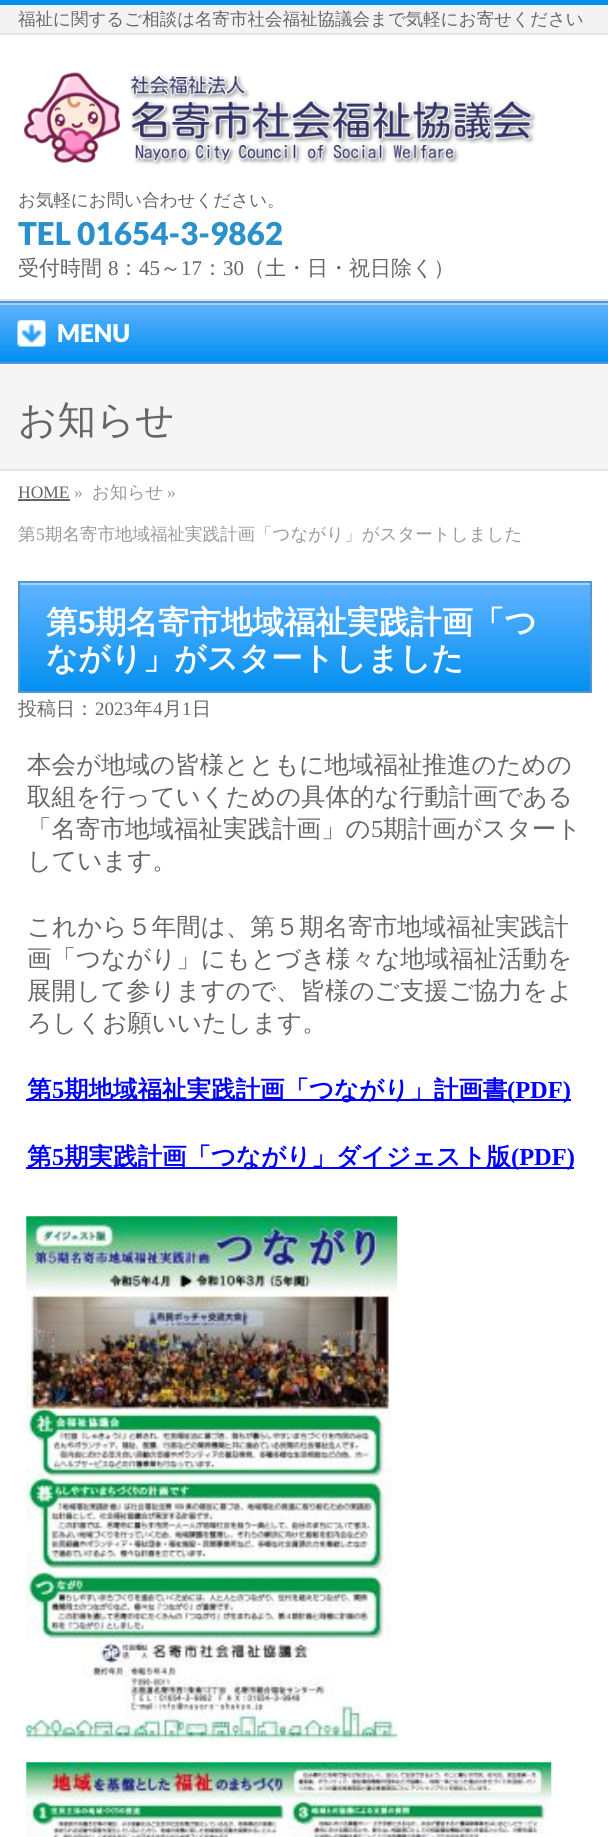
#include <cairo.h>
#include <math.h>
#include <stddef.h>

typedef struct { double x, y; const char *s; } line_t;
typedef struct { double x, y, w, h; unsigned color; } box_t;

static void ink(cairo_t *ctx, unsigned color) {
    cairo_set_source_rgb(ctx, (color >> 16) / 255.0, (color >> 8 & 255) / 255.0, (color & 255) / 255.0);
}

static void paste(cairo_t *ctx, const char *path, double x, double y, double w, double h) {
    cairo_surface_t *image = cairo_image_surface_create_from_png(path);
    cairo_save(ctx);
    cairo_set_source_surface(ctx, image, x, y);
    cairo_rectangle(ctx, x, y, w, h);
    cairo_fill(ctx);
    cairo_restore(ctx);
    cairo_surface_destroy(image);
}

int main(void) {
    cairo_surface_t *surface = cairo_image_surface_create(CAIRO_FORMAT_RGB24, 608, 1837);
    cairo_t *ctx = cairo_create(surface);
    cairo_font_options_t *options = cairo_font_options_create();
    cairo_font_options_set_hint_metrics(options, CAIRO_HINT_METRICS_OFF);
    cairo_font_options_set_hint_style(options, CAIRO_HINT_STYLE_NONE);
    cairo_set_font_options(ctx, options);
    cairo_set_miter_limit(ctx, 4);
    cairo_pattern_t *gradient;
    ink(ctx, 0xFFFFFF);
    cairo_paint(ctx);
    ink(ctx, 0xF3F3F3);
    cairo_rectangle(ctx, 0, 5, 608, 28);
    cairo_fill(ctx);
    ink(ctx, 0x0490F0);
    cairo_rectangle(ctx, 0, 0, 608, 5);
    cairo_fill(ctx);
    cairo_select_font_face(ctx, "WenQuanYi Zen Hei Medium", CAIRO_FONT_SLANT_NORMAL, CAIRO_FONT_WEIGHT_NORMAL);
    cairo_set_font_size(ctx, 17.5);
    ink(ctx, 0x666666);
    cairo_move_to(ctx, 18, 25);
    cairo_show_text(ctx, "福祉に関するご相談は名寄市社会福祉協議会まで気軽にお寄せください");
    ink(ctx, 0xE4E4E4);
    cairo_rectangle(ctx, 0, 33, 608, 2);
    cairo_fill(ctx);
    cairo_rectangle(ctx, 0, 299, 608, 2);
    cairo_fill(ctx);
    paste(ctx, "media/1.png", 24, 72, 512, 94);
    ink(ctx, 0x666666);
    cairo_move_to(ctx, 18, 206);
    cairo_show_text(ctx, "お気軽にお問い合わせください。");
    cairo_select_font_face(ctx, "Lato Black", CAIRO_FONT_SLANT_NORMAL, CAIRO_FONT_WEIGHT_NORMAL);
    cairo_set_font_size(ctx, 31.5);
    ink(ctx, 0x2B91CB);
    cairo_move_to(ctx, 18, 245);
    cairo_show_text(ctx, "TEL 01654-3-9862");
    cairo_select_font_face(ctx, "WenQuanYi Zen Hei Medium", CAIRO_FONT_SLANT_NORMAL, CAIRO_FONT_WEIGHT_NORMAL);
    cairo_set_font_size(ctx, 21);
    ink(ctx, 0x666666);
    cairo_move_to(ctx, 18, 275);
    cairo_show_text(ctx, "受付時間");
    cairo_select_font_face(ctx, "Liberation Serif", CAIRO_FONT_SLANT_NORMAL, CAIRO_FONT_WEIGHT_NORMAL);
    cairo_move_to(ctx, 108, 275);
    cairo_show_text(ctx, "8");
    cairo_select_font_face(ctx, "WenQuanYi Zen Hei Medium", CAIRO_FONT_SLANT_NORMAL, CAIRO_FONT_WEIGHT_NORMAL);
    cairo_move_to(ctx, 118, 275);
    cairo_show_text(ctx, "：");
    cairo_select_font_face(ctx, "Liberation Serif", CAIRO_FONT_SLANT_NORMAL, CAIRO_FONT_WEIGHT_NORMAL);
    cairo_move_to(ctx, 139, 275);
    cairo_show_text(ctx, "45");
    cairo_select_font_face(ctx, "WenQuanYi Zen Hei Medium", CAIRO_FONT_SLANT_NORMAL, CAIRO_FONT_WEIGHT_NORMAL);
    cairo_move_to(ctx, 160, 275);
    cairo_show_text(ctx, "～");
    cairo_select_font_face(ctx, "Liberation Serif", CAIRO_FONT_SLANT_NORMAL, CAIRO_FONT_WEIGHT_NORMAL);
    cairo_move_to(ctx, 181, 275);
    cairo_show_text(ctx, "17");
    cairo_select_font_face(ctx, "WenQuanYi Zen Hei Medium", CAIRO_FONT_SLANT_NORMAL, CAIRO_FONT_WEIGHT_NORMAL);
    cairo_move_to(ctx, 202, 275);
    cairo_show_text(ctx, "：");
    cairo_select_font_face(ctx, "Liberation Serif", CAIRO_FONT_SLANT_NORMAL, CAIRO_FONT_WEIGHT_NORMAL);
    cairo_move_to(ctx, 223, 275);
    cairo_show_text(ctx, "30");
    cairo_select_font_face(ctx, "WenQuanYi Zen Hei Medium", CAIRO_FONT_SLANT_NORMAL, CAIRO_FONT_WEIGHT_NORMAL);
    cairo_move_to(ctx, 244, 275);
    cairo_show_text(ctx, "（土・日・祝日除く）");
    gradient = cairo_pattern_create_linear(305, 303, 305, 362);
    cairo_pattern_add_color_stop_rgba(gradient, 0, 0.38, 0.702, 1, 1);
    cairo_pattern_add_color_stop_rgba(gradient, 1, 0, 0.561, 0.937, 1);
    cairo_set_source(ctx, gradient);
    cairo_pattern_destroy(gradient);
    cairo_rectangle(ctx, 0, 305, 608, 57);
    cairo_fill(ctx);
    {
        static const box_t items[] = {
            {0, 303, 608, 2, 0x9FD1FF},
            {0, 301, 608, 2, 0x5197D5},
            {0, 362, 608, 2, 0x5197D5},
        };
        for (size_t i = 0; i < sizeof items / sizeof *items; i++) {
            ink(ctx, items[i].color);
            cairo_rectangle(ctx, items[i].x, items[i].y, items[i].w, items[i].h);
            cairo_fill(ctx);
        }
    }
    paste(ctx, "media/2.png", 17, 320, 29, 27);
    cairo_select_font_face(ctx, "Lato Black", CAIRO_FONT_SLANT_NORMAL, CAIRO_FONT_WEIGHT_NORMAL);
    cairo_set_font_size(ctx, 24.5);
    ink(ctx, 0xFFFFFF);
    cairo_move_to(ctx, 57, 342);
    cairo_show_text(ctx, "MENU");
    ink(ctx, 0xF5F5F5);
    cairo_rectangle(ctx, 0, 364, 608, 105);
    cairo_fill(ctx);
    ink(ctx, 0xE5E5E5);
    cairo_rectangle(ctx, 0, 469, 608, 2);
    cairo_fill(ctx);
    cairo_select_font_face(ctx, "WenQuanYi Zen Hei Medium", CAIRO_FONT_SLANT_NORMAL, CAIRO_FONT_WEIGHT_NORMAL);
    cairo_set_font_size(ctx, 38.5);
    ink(ctx, 0x666666);
    cairo_move_to(ctx, 18, 433);
    cairo_show_text(ctx, "お知らせ");
    cairo_select_font_face(ctx, "Liberation Serif", CAIRO_FONT_SLANT_NORMAL, CAIRO_FONT_WEIGHT_NORMAL);
    cairo_set_font_size(ctx, 17.5);
    cairo_move_to(ctx, 18, 498);
    cairo_show_text(ctx, "HOME");
    cairo_rectangle(ctx, 18, 499, 52, 2);
    cairo_fill(ctx);
    ink(ctx, 0x999999);
    cairo_move_to(ctx, 74, 498);
    cairo_show_text(ctx, "»");
    cairo_select_font_face(ctx, "WenQuanYi Zen Hei Medium", CAIRO_FONT_SLANT_NORMAL, CAIRO_FONT_WEIGHT_NORMAL);
    cairo_move_to(ctx, 92, 498);
    cairo_show_text(ctx, "お知らせ");
    cairo_select_font_face(ctx, "Liberation Serif", CAIRO_FONT_SLANT_NORMAL, CAIRO_FONT_WEIGHT_NORMAL);
    cairo_move_to(ctx, 167, 498);
    cairo_show_text(ctx, "»");
    cairo_select_font_face(ctx, "WenQuanYi Zen Hei Medium", CAIRO_FONT_SLANT_NORMAL, CAIRO_FONT_WEIGHT_NORMAL);
    cairo_move_to(ctx, 18, 540);
    cairo_show_text(ctx, "第");
    cairo_select_font_face(ctx, "Liberation Serif", CAIRO_FONT_SLANT_NORMAL, CAIRO_FONT_WEIGHT_NORMAL);
    cairo_move_to(ctx, 36, 540);
    cairo_show_text(ctx, "5");
    cairo_select_font_face(ctx, "WenQuanYi Zen Hei Medium", CAIRO_FONT_SLANT_NORMAL, CAIRO_FONT_WEIGHT_NORMAL);
    cairo_move_to(ctx, 45, 540);
    cairo_show_text(ctx, "期名寄市地域福祉実践計画「つながり」がスタートしました");
    gradient = cairo_pattern_create_linear(305, 583, 305, 691);
    cairo_pattern_add_color_stop_rgba(gradient, 0, 0.38, 0.702, 1, 1);
    cairo_pattern_add_color_stop_rgba(gradient, 1, 0.012, 0.565, 0.941, 1);
    cairo_set_source(ctx, gradient);
    cairo_pattern_destroy(gradient);
    cairo_rectangle(ctx, 20, 585, 570, 106);
    cairo_fill(ctx);
    ink(ctx, 0xA0D1FF);
    cairo_rectangle(ctx, 19, 583, 571, 2);
    cairo_fill(ctx);
    cairo_rectangle(ctx, 19, 582, 572, 110);
    ink(ctx, 0x5197D5);
    cairo_stroke(ctx);
    cairo_select_font_face(ctx, "WenQuanYi Zen Hei", CAIRO_FONT_SLANT_NORMAL, CAIRO_FONT_WEIGHT_BOLD);
    cairo_set_font_size(ctx, 31.5);
    ink(ctx, 0xFFFFFF);
    cairo_move_to(ctx, 46, 633);
    cairo_show_text(ctx, "第");
    cairo_select_font_face(ctx, "Liberation Sans", CAIRO_FONT_SLANT_NORMAL, CAIRO_FONT_WEIGHT_BOLD);
    cairo_move_to(ctx, 78, 633);
    cairo_show_text(ctx, "5");
    cairo_select_font_face(ctx, "WenQuanYi Zen Hei", CAIRO_FONT_SLANT_NORMAL, CAIRO_FONT_WEIGHT_BOLD);
    cairo_move_to(ctx, 95, 633);
    cairo_show_text(ctx, "期名寄市地域福祉実践計画「つ");
    cairo_move_to(ctx, 46, 669);
    cairo_show_text(ctx, "ながり」がスタートしました");
    cairo_select_font_face(ctx, "WenQuanYi Zen Hei Medium", CAIRO_FONT_SLANT_NORMAL, CAIRO_FONT_WEIGHT_NORMAL);
    cairo_set_font_size(ctx, 19);
    ink(ctx, 0x666666);
    cairo_move_to(ctx, 18, 715);
    cairo_show_text(ctx, "投稿日：");
    cairo_select_font_face(ctx, "Liberation Serif", CAIRO_FONT_SLANT_NORMAL, CAIRO_FONT_WEIGHT_NORMAL);
    cairo_move_to(ctx, 95, 715);
    cairo_show_text(ctx, "2023");
    cairo_select_font_face(ctx, "WenQuanYi Zen Hei Medium", CAIRO_FONT_SLANT_NORMAL, CAIRO_FONT_WEIGHT_NORMAL);
    cairo_move_to(ctx, 134, 715);
    cairo_show_text(ctx, "年");
    cairo_select_font_face(ctx, "Liberation Serif", CAIRO_FONT_SLANT_NORMAL, CAIRO_FONT_WEIGHT_NORMAL);
    cairo_move_to(ctx, 153, 715);
    cairo_show_text(ctx, "4");
    cairo_select_font_face(ctx, "WenQuanYi Zen Hei Medium", CAIRO_FONT_SLANT_NORMAL, CAIRO_FONT_WEIGHT_NORMAL);
    cairo_move_to(ctx, 163, 715);
    cairo_show_text(ctx, "月");
    cairo_select_font_face(ctx, "Liberation Serif", CAIRO_FONT_SLANT_NORMAL, CAIRO_FONT_WEIGHT_NORMAL);
    cairo_move_to(ctx, 182, 715);
    cairo_show_text(ctx, "1");
    cairo_select_font_face(ctx, "WenQuanYi Zen Hei Medium", CAIRO_FONT_SLANT_NORMAL, CAIRO_FONT_WEIGHT_NORMAL);
    cairo_move_to(ctx, 192, 715);
    cairo_show_text(ctx, "日");
    cairo_set_font_size(ctx, 24.5);
    {
        static const line_t items[] = {
            {27, 773, "本会が地域の皆様とともに地域福祉推進のための"},
            {27, 805, "取組を行っていくための具体的な行動計画である"},
            {27, 837, "「名寄市地域福祉実践計画」の"},
        };
        for (size_t i = 0; i < sizeof items / sizeof *items; i++) {
            cairo_move_to(ctx, items[i].x, items[i].y);
            cairo_show_text(ctx, items[i].s);
        }
    }
    cairo_select_font_face(ctx, "Liberation Serif", CAIRO_FONT_SLANT_NORMAL, CAIRO_FONT_WEIGHT_NORMAL);
    cairo_move_to(ctx, 371, 837);
    cairo_show_text(ctx, "5");
    cairo_select_font_face(ctx, "WenQuanYi Zen Hei Medium", CAIRO_FONT_SLANT_NORMAL, CAIRO_FONT_WEIGHT_NORMAL);
    {
        static const line_t items[] = {
            {383, 837, "期計画がスタート"},
            {27, 869, "しています。"},
            {27, 935, "これから５年間は、第５期名寄市地域福祉実践計"},
            {27, 967, "画「つながり」にもとづき様々な地域福祉活動を"},
            {27, 999, "展開して参りますので、皆様のご支援ご協力をよ"},
            {27, 1031, "ろしくお願いいたします。"},
        };
        for (size_t i = 0; i < sizeof items / sizeof *items; i++) {
            cairo_move_to(ctx, items[i].x, items[i].y);
            cairo_show_text(ctx, items[i].s);
        }
    }
    ink(ctx, 0x0000FF);
    cairo_rectangle(ctx, 26, 1099, 545, 2);
    cairo_fill(ctx);
    cairo_select_font_face(ctx, "WenQuanYi Zen Hei", CAIRO_FONT_SLANT_NORMAL, CAIRO_FONT_WEIGHT_BOLD);
    cairo_move_to(ctx, 27, 1098);
    cairo_show_text(ctx, "第");
    cairo_select_font_face(ctx, "Liberation Serif", CAIRO_FONT_SLANT_NORMAL, CAIRO_FONT_WEIGHT_BOLD);
    cairo_move_to(ctx, 52, 1098);
    cairo_show_text(ctx, "5");
    cairo_select_font_face(ctx, "WenQuanYi Zen Hei", CAIRO_FONT_SLANT_NORMAL, CAIRO_FONT_WEIGHT_BOLD);
    cairo_move_to(ctx, 64, 1098);
    cairo_show_text(ctx, "期地域福祉実践計画「つながり」計画書");
    cairo_select_font_face(ctx, "Liberation Serif", CAIRO_FONT_SLANT_NORMAL, CAIRO_FONT_WEIGHT_BOLD);
    cairo_move_to(ctx, 507, 1098);
    cairo_show_text(ctx, "(PDF)");
    cairo_rectangle(ctx, 26, 1167, 548, 2);
    cairo_fill(ctx);
    cairo_select_font_face(ctx, "WenQuanYi Zen Hei", CAIRO_FONT_SLANT_NORMAL, CAIRO_FONT_WEIGHT_BOLD);
    cairo_move_to(ctx, 27, 1165);
    cairo_show_text(ctx, "第");
    cairo_select_font_face(ctx, "Liberation Serif", CAIRO_FONT_SLANT_NORMAL, CAIRO_FONT_WEIGHT_BOLD);
    cairo_move_to(ctx, 52, 1165);
    cairo_show_text(ctx, "5");
    cairo_select_font_face(ctx, "WenQuanYi Zen Hei", CAIRO_FONT_SLANT_NORMAL, CAIRO_FONT_WEIGHT_BOLD);
    cairo_move_to(ctx, 64, 1165);
    cairo_show_text(ctx, "期実践計画「つながり」ダイジェスト版");
    cairo_select_font_face(ctx, "Liberation Serif", CAIRO_FONT_SLANT_NORMAL, CAIRO_FONT_WEIGHT_BOLD);
    cairo_move_to(ctx, 511, 1165);
    cairo_show_text(ctx, "(PDF)");
    paste(ctx, "media/3.png", 26, 1216, 372, 526);
    paste(ctx, "media/4.png", 26, 1762, 526, 75);
    cairo_surface_write_to_png(surface, "image.png");
    cairo_font_options_destroy(options);
    cairo_destroy(ctx);
    cairo_surface_destroy(surface);
    return 0;
}
